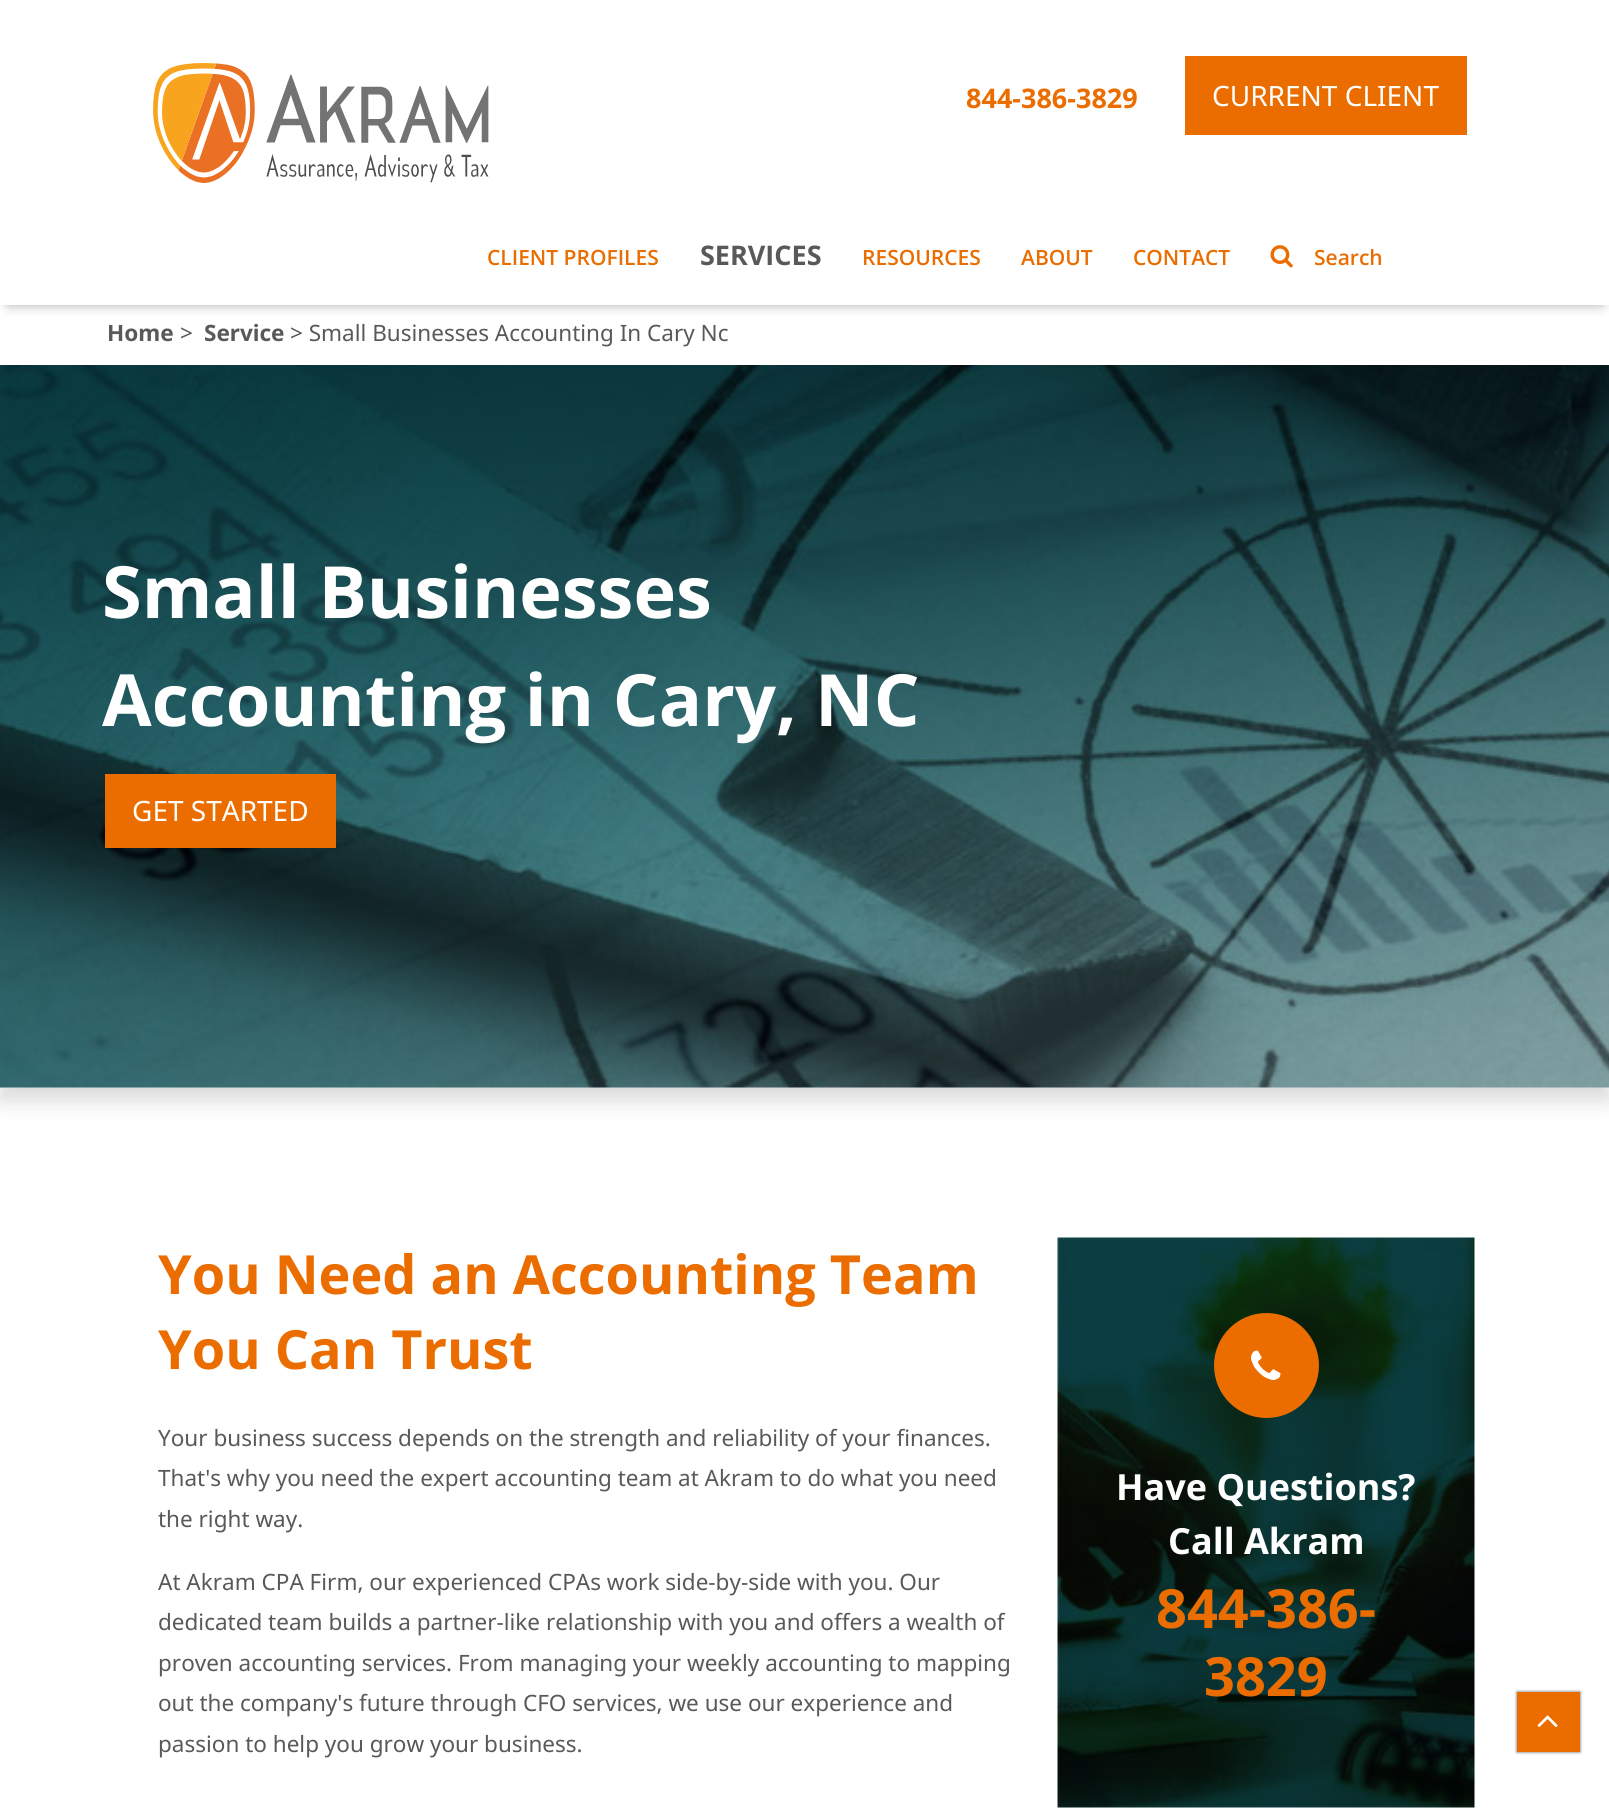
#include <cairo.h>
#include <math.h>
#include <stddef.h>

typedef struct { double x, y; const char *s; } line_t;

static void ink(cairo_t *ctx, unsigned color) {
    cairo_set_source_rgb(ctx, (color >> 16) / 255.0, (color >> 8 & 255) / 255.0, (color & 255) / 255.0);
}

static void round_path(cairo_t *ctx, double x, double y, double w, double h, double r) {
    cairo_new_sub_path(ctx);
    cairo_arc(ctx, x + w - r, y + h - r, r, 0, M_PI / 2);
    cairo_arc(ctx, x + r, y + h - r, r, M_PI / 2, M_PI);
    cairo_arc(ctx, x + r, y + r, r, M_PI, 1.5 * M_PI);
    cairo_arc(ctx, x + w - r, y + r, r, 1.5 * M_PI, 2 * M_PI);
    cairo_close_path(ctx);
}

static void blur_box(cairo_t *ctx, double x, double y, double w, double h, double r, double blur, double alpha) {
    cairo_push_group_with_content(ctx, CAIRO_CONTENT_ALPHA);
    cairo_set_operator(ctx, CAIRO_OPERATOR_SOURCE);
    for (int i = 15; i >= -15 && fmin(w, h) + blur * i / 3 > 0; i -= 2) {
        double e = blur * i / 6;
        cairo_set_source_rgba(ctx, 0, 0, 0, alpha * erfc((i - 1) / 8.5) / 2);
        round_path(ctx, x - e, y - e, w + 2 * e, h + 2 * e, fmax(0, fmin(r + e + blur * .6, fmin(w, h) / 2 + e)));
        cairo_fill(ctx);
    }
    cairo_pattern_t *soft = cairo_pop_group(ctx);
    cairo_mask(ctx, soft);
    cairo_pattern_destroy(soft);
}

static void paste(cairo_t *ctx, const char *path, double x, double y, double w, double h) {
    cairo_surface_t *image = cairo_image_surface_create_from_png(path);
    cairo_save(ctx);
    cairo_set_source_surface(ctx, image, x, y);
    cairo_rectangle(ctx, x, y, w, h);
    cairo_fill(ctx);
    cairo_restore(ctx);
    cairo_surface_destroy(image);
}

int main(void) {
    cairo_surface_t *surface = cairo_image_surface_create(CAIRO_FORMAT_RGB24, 1609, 1812);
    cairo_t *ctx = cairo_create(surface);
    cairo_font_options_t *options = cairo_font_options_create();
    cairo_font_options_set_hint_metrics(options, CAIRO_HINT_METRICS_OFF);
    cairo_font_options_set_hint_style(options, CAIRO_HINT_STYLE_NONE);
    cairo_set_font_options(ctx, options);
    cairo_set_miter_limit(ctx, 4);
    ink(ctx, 0xFFFFFF);
    cairo_paint(ctx);
    cairo_save(ctx);
    cairo_rectangle(ctx, 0, 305, 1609, 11);
    cairo_clip(ctx);
    ink(ctx, 0x808080);
    blur_box(ctx, 9, 65, 1592, 237, 0, 7, 1);
    cairo_restore(ctx);
    paste(ctx, "media/1.png", 153, 63, 336, 120);
    cairo_select_font_face(ctx, "Noto Sans", CAIRO_FONT_SLANT_NORMAL, CAIRO_FONT_WEIGHT_BOLD);
    cairo_set_font_size(ctx, 27);
    ink(ctx, 0xEB6D00);
    cairo_move_to(ctx, 966, 108);
    cairo_show_text(ctx, "844-386-3829");
    cairo_rectangle(ctx, 1185, 56, 282, 79);
    cairo_fill(ctx);
    cairo_select_font_face(ctx, "Noto Sans", CAIRO_FONT_SLANT_NORMAL, CAIRO_FONT_WEIGHT_NORMAL);
    cairo_set_font_size(ctx, 28);
    ink(ctx, 0xFFFFFF);
    cairo_move_to(ctx, 1212, 106);
    cairo_show_text(ctx, "CURRENT CLIENT");
    cairo_rectangle(ctx, 0, 304, 1609, 1);
    cairo_fill(ctx);
    cairo_select_font_face(ctx, "Open Sans SemiBold", CAIRO_FONT_SLANT_NORMAL, CAIRO_FONT_WEIGHT_NORMAL);
    cairo_set_font_size(ctx, 21);
    ink(ctx, 0xEB6D00);
    cairo_move_to(ctx, 487, 265);
    cairo_show_text(ctx, "CLIENT PROFILES");
    cairo_select_font_face(ctx, "Open Sans", CAIRO_FONT_SLANT_NORMAL, CAIRO_FONT_WEIGHT_BOLD);
    cairo_set_font_size(ctx, 27);
    ink(ctx, 0x595959);
    cairo_move_to(ctx, 700, 265);
    cairo_show_text(ctx, "SERVICES");
    cairo_select_font_face(ctx, "Open Sans SemiBold", CAIRO_FONT_SLANT_NORMAL, CAIRO_FONT_WEIGHT_NORMAL);
    cairo_set_font_size(ctx, 21);
    ink(ctx, 0xEB6D00);
    {
        static const line_t items[] = {
            {862, 265, "RESOURCES"},
            {1021, 265, "ABOUT"},
            {1133, 265, "CONTACT"},
        };
        for (size_t i = 0; i < sizeof items / sizeof *items; i++) {
            cairo_move_to(ctx, items[i].x, items[i].y);
            cairo_show_text(ctx, items[i].s);
        }
    }
    paste(ctx, "media/2.png", 1270, 245, 23, 23);
    cairo_move_to(ctx, 1314, 265);
    cairo_show_text(ctx, "Search");
    ink(ctx, 0x000000);
    blur_box(ctx, 0, 354, 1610, 746, 0, 11, 0.15);
    ink(ctx, 0xFFFFFF);
    cairo_rectangle(ctx, 0, 338, 1609, 27);
    cairo_fill(ctx);
    cairo_select_font_face(ctx, "Noto Sans", CAIRO_FONT_SLANT_NORMAL, CAIRO_FONT_WEIGHT_BOLD);
    cairo_set_font_size(ctx, 22.5);
    ink(ctx, 0x595959);
    cairo_move_to(ctx, 107, 341);
    cairo_show_text(ctx, "Home");
    cairo_select_font_face(ctx, "Noto Sans", CAIRO_FONT_SLANT_NORMAL, CAIRO_FONT_WEIGHT_NORMAL);
    cairo_move_to(ctx, 180, 341);
    cairo_show_text(ctx, ">");
    cairo_select_font_face(ctx, "Noto Sans", CAIRO_FONT_SLANT_NORMAL, CAIRO_FONT_WEIGHT_BOLD);
    cairo_move_to(ctx, 204, 341);
    cairo_show_text(ctx, "Service");
    cairo_select_font_face(ctx, "Noto Sans", CAIRO_FONT_SLANT_NORMAL, CAIRO_FONT_WEIGHT_NORMAL);
    cairo_move_to(ctx, 290, 341);
    cairo_show_text(ctx, "> Small Businesses Accounting In Cary Nc");
    paste(ctx, "media/3.png", 0, 365, 1609, 723);
    cairo_select_font_face(ctx, "Open Sans", CAIRO_FONT_SLANT_NORMAL, CAIRO_FONT_WEIGHT_BOLD);
    cairo_set_font_size(ctx, 72);
    ink(ctx, 0xFFFFFF);
    cairo_move_to(ctx, 102, 618);
    cairo_show_text(ctx, "Small Businesses");
    cairo_move_to(ctx, 102, 726);
    cairo_show_text(ctx, "Accounting in Cary, NC");
    ink(ctx, 0xEB6D00);
    cairo_rectangle(ctx, 105, 774, 231, 74);
    cairo_fill(ctx);
    cairo_select_font_face(ctx, "Noto Sans", CAIRO_FONT_SLANT_NORMAL, CAIRO_FONT_WEIGHT_NORMAL);
    cairo_set_font_size(ctx, 28);
    ink(ctx, 0xFFFFFF);
    cairo_move_to(ctx, 132, 821);
    cairo_show_text(ctx, "GET STARTED");
    cairo_select_font_face(ctx, "Open Sans", CAIRO_FONT_SLANT_NORMAL, CAIRO_FONT_WEIGHT_BOLD);
    cairo_set_font_size(ctx, 54);
    ink(ctx, 0xEB6D00);
    cairo_move_to(ctx, 158, 1294);
    cairo_show_text(ctx, "You Need an Accounting Team");
    cairo_move_to(ctx, 158, 1369);
    cairo_show_text(ctx, "You Can Trust");
    cairo_select_font_face(ctx, "Noto Sans", CAIRO_FONT_SLANT_NORMAL, CAIRO_FONT_WEIGHT_NORMAL);
    cairo_set_font_size(ctx, 22.5);
    ink(ctx, 0x595959);
    {
        static const line_t items[] = {
            {158, 1446, "Your business success depends on the strength and reliability of your finances."},
            {158, 1486, "That's why you need the expert accounting team at Akram to do what you need"},
            {158, 1527, "the right way."},
            {158, 1590, "At Akram CPA Firm, our experienced CPAs work side-by-side with you. Our"},
            {158, 1630, "dedicated team builds a partner-like relationship with you and offers a wealth of"},
            {158, 1671, "proven accounting services. From managing your weekly accounting to mapping"},
            {158, 1711, "out the company's future through CFO services, we use our experience and"},
            {158, 1752, "passion to help you grow your business."},
        };
        for (size_t i = 0; i < sizeof items / sizeof *items; i++) {
            cairo_move_to(ctx, items[i].x, items[i].y);
            cairo_show_text(ctx, items[i].s);
        }
    }
    paste(ctx, "media/4.png", 1057, 1237, 418, 571);
    ink(ctx, 0xEB6D00);
    cairo_arc(ctx, 1266.5, 1365.5, 52.5, 0, 2 * M_PI);
    cairo_fill(ctx);
    paste(ctx, "media/5.png", 1251, 1350, 30, 30);
    cairo_select_font_face(ctx, "Open Sans", CAIRO_FONT_SLANT_NORMAL, CAIRO_FONT_WEIGHT_BOLD);
    cairo_set_font_size(ctx, 36);
    ink(ctx, 0xFFFFFF);
    cairo_move_to(ctx, 1116, 1500);
    cairo_show_text(ctx, "Have Questions?");
    cairo_move_to(ctx, 1168, 1554);
    cairo_show_text(ctx, "Call Akram");
    cairo_set_font_size(ctx, 54);
    ink(ctx, 0xEB6D00);
    cairo_move_to(ctx, 1156, 1628);
    cairo_show_text(ctx, "844-386-");
    cairo_move_to(ctx, 1204, 1696);
    cairo_show_text(ctx, "3829");
    ink(ctx, 0x54595F);
    blur_box(ctx, 1517, 1692, 63, 60, 0, 1.5, 1);
    ink(ctx, 0xEB6D00);
    cairo_rectangle(ctx, 1517, 1692, 63, 60);
    cairo_fill(ctx);
    paste(ctx, "media/6.png", 1537, 1715, 21, 12);
    cairo_surface_write_to_png(surface, "image.png");
    cairo_font_options_destroy(options);
    cairo_destroy(ctx);
    cairo_surface_destroy(surface);
    return 0;
}
